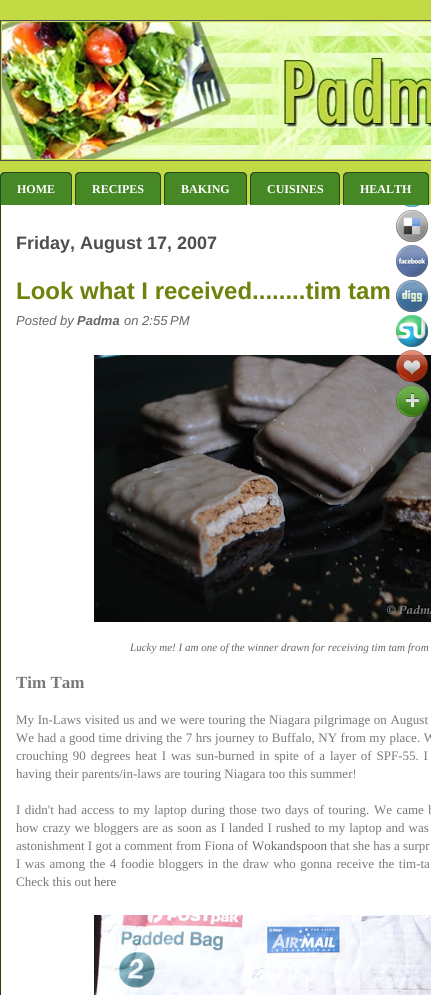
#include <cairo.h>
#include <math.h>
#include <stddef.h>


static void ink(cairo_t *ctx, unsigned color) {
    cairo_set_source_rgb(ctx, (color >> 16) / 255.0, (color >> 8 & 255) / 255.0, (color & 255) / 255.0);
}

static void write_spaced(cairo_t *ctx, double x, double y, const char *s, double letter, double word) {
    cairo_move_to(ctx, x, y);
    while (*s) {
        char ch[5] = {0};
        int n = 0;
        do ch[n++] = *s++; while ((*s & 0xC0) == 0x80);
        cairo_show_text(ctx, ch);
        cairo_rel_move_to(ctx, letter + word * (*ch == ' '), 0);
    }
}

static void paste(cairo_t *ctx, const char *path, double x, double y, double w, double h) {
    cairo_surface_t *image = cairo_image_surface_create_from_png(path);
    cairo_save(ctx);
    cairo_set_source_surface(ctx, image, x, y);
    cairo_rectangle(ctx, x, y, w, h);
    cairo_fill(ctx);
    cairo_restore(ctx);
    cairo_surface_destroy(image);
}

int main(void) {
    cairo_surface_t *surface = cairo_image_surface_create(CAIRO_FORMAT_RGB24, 431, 995);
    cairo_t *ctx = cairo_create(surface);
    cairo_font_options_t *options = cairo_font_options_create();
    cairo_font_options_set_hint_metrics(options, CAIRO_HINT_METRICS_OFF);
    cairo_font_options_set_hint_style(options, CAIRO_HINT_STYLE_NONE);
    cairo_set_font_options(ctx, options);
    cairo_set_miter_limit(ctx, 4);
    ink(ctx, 0xC2DA44);
    cairo_paint(ctx);
    cairo_rectangle(ctx, 0.5, 20.5, 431, 140);
    ink(ctx, 0x504D4D);
    cairo_set_line_width(ctx, 1);
    cairo_stroke(ctx);
    paste(ctx, "media/1.png", 1, 21, 430, 139);
    ink(ctx, 0xFFFFFF);
    cairo_rectangle(ctx, 1, 204, 430, 791);
    cairo_fill(ctx);
    ink(ctx, 0x24410A);
    cairo_rectangle(ctx, 0, 204, 1, 791);
    cairo_fill(ctx);
    ink(ctx, 0x468826);
    cairo_new_path(ctx);
    cairo_move_to(ctx, 5, 172);
    cairo_line_to(ctx, 67, 172);
    cairo_curve_to(ctx, 70, 172, 72, 174, 72, 177);
    cairo_line_to(ctx, 72, 205);
    cairo_line_to(ctx, 0, 205);
    cairo_line_to(ctx, 0, 177);
    cairo_curve_to(ctx, 0, 174, 2, 172, 5, 172);
    cairo_close_path(ctx);
    cairo_fill(ctx);
    ink(ctx, 0x294920);
    cairo_set_fill_rule(ctx, CAIRO_FILL_RULE_EVEN_ODD);
    cairo_new_path(ctx);
    cairo_move_to(ctx, 5, 172);
    cairo_line_to(ctx, 67, 172);
    cairo_curve_to(ctx, 70, 172, 72, 174, 72, 177);
    cairo_line_to(ctx, 72, 205);
    cairo_line_to(ctx, 0, 205);
    cairo_line_to(ctx, 0, 177);
    cairo_curve_to(ctx, 0, 174, 2, 172, 5, 172);
    cairo_close_path(ctx);
    cairo_move_to(ctx, 5, 173);
    cairo_line_to(ctx, 67, 173);
    cairo_curve_to(ctx, 69, 173, 71, 175, 71, 177);
    cairo_line_to(ctx, 71, 205);
    cairo_line_to(ctx, 1, 205);
    cairo_line_to(ctx, 1, 177);
    cairo_curve_to(ctx, 1, 175, 3, 173, 5, 173);
    cairo_close_path(ctx);
    cairo_fill(ctx);
    cairo_select_font_face(ctx, "Liberation Serif", CAIRO_FONT_SLANT_NORMAL, CAIRO_FONT_WEIGHT_BOLD);
    cairo_set_font_size(ctx, 12);
    ink(ctx, 0xFFFFFF);
    cairo_move_to(ctx, 17, 193);
    cairo_show_text(ctx, "HOME");
    ink(ctx, 0x468826);
    cairo_new_path(ctx);
    cairo_move_to(ctx, 80, 172);
    cairo_line_to(ctx, 156, 172);
    cairo_curve_to(ctx, 159, 172, 161, 174, 161, 177);
    cairo_line_to(ctx, 161, 205);
    cairo_line_to(ctx, 75, 205);
    cairo_line_to(ctx, 75, 177);
    cairo_curve_to(ctx, 75, 174, 77, 172, 80, 172);
    cairo_close_path(ctx);
    cairo_fill(ctx);
    ink(ctx, 0x294920);
    cairo_new_path(ctx);
    cairo_move_to(ctx, 80, 172);
    cairo_line_to(ctx, 156, 172);
    cairo_curve_to(ctx, 159, 172, 161, 174, 161, 177);
    cairo_line_to(ctx, 161, 205);
    cairo_line_to(ctx, 75, 205);
    cairo_line_to(ctx, 75, 177);
    cairo_curve_to(ctx, 75, 174, 77, 172, 80, 172);
    cairo_close_path(ctx);
    cairo_move_to(ctx, 80, 173);
    cairo_line_to(ctx, 156, 173);
    cairo_curve_to(ctx, 158, 173, 160, 175, 160, 177);
    cairo_line_to(ctx, 160, 205);
    cairo_line_to(ctx, 76, 205);
    cairo_line_to(ctx, 76, 177);
    cairo_curve_to(ctx, 76, 175, 78, 173, 80, 173);
    cairo_close_path(ctx);
    cairo_fill(ctx);
    ink(ctx, 0xFFFFFF);
    cairo_move_to(ctx, 92, 193);
    cairo_show_text(ctx, "RECIPES");
    ink(ctx, 0x468826);
    cairo_new_path(ctx);
    cairo_move_to(ctx, 169, 172);
    cairo_line_to(ctx, 242, 172);
    cairo_curve_to(ctx, 245, 172, 247, 174, 247, 177);
    cairo_line_to(ctx, 247, 205);
    cairo_line_to(ctx, 164, 205);
    cairo_line_to(ctx, 164, 177);
    cairo_curve_to(ctx, 164, 174, 166, 172, 169, 172);
    cairo_close_path(ctx);
    cairo_fill(ctx);
    ink(ctx, 0x294920);
    cairo_new_path(ctx);
    cairo_move_to(ctx, 169, 172);
    cairo_line_to(ctx, 242, 172);
    cairo_curve_to(ctx, 245, 172, 247, 174, 247, 177);
    cairo_line_to(ctx, 247, 205);
    cairo_line_to(ctx, 164, 205);
    cairo_line_to(ctx, 164, 177);
    cairo_curve_to(ctx, 164, 174, 166, 172, 169, 172);
    cairo_close_path(ctx);
    cairo_move_to(ctx, 169, 173);
    cairo_line_to(ctx, 242, 173);
    cairo_curve_to(ctx, 244, 173, 246, 175, 246, 177);
    cairo_line_to(ctx, 246, 205);
    cairo_line_to(ctx, 165, 205);
    cairo_line_to(ctx, 165, 177);
    cairo_curve_to(ctx, 165, 175, 167, 173, 169, 173);
    cairo_close_path(ctx);
    cairo_fill(ctx);
    ink(ctx, 0xFFFFFF);
    cairo_move_to(ctx, 181, 193);
    cairo_show_text(ctx, "BAKING");
    ink(ctx, 0x468826);
    cairo_new_path(ctx);
    cairo_move_to(ctx, 255, 172);
    cairo_line_to(ctx, 335, 172);
    cairo_curve_to(ctx, 338, 172, 340, 174, 340, 177);
    cairo_line_to(ctx, 340, 205);
    cairo_line_to(ctx, 250, 205);
    cairo_line_to(ctx, 250, 177);
    cairo_curve_to(ctx, 250, 174, 252, 172, 255, 172);
    cairo_close_path(ctx);
    cairo_fill(ctx);
    ink(ctx, 0x294920);
    cairo_new_path(ctx);
    cairo_move_to(ctx, 255, 172);
    cairo_line_to(ctx, 335, 172);
    cairo_curve_to(ctx, 338, 172, 340, 174, 340, 177);
    cairo_line_to(ctx, 340, 205);
    cairo_line_to(ctx, 250, 205);
    cairo_line_to(ctx, 250, 177);
    cairo_curve_to(ctx, 250, 174, 252, 172, 255, 172);
    cairo_close_path(ctx);
    cairo_move_to(ctx, 255, 173);
    cairo_line_to(ctx, 335, 173);
    cairo_curve_to(ctx, 337, 173, 339, 175, 339, 177);
    cairo_line_to(ctx, 339, 205);
    cairo_line_to(ctx, 251, 205);
    cairo_line_to(ctx, 251, 177);
    cairo_curve_to(ctx, 251, 175, 253, 173, 255, 173);
    cairo_close_path(ctx);
    cairo_fill(ctx);
    ink(ctx, 0xFFFFFF);
    cairo_move_to(ctx, 267, 193);
    cairo_show_text(ctx, "CUISINES");
    ink(ctx, 0x468826);
    cairo_new_path(ctx);
    cairo_move_to(ctx, 348, 172);
    cairo_line_to(ctx, 424, 172);
    cairo_curve_to(ctx, 427, 172, 429, 174, 429, 177);
    cairo_line_to(ctx, 429, 205);
    cairo_line_to(ctx, 343, 205);
    cairo_line_to(ctx, 343, 177);
    cairo_curve_to(ctx, 343, 174, 345, 172, 348, 172);
    cairo_close_path(ctx);
    cairo_fill(ctx);
    ink(ctx, 0x294920);
    cairo_new_path(ctx);
    cairo_move_to(ctx, 348, 172);
    cairo_line_to(ctx, 424, 172);
    cairo_curve_to(ctx, 427, 172, 429, 174, 429, 177);
    cairo_line_to(ctx, 429, 205);
    cairo_line_to(ctx, 343, 205);
    cairo_line_to(ctx, 343, 177);
    cairo_curve_to(ctx, 343, 174, 345, 172, 348, 172);
    cairo_close_path(ctx);
    cairo_move_to(ctx, 348, 173);
    cairo_line_to(ctx, 424, 173);
    cairo_curve_to(ctx, 426, 173, 428, 175, 428, 177);
    cairo_line_to(ctx, 428, 205);
    cairo_line_to(ctx, 344, 205);
    cairo_line_to(ctx, 344, 177);
    cairo_curve_to(ctx, 344, 175, 346, 173, 348, 173);
    cairo_close_path(ctx);
    cairo_fill(ctx);
    ink(ctx, 0xFFFFFF);
    cairo_move_to(ctx, 360, 193);
    cairo_show_text(ctx, "HEALTH");
    cairo_select_font_face(ctx, "Liberation Sans", CAIRO_FONT_SLANT_NORMAL, CAIRO_FONT_WEIGHT_BOLD);
    cairo_set_font_size(ctx, 18);
    ink(ctx, 0x504D4D);
    cairo_move_to(ctx, 16, 249);
    cairo_show_text(ctx, "Friday, August 17, 2007");
    cairo_set_font_size(ctx, 24);
    ink(ctx, 0x6F820B);
    cairo_move_to(ctx, 16, 299);
    cairo_show_text(ctx, "Look what I received........tim tam");
    cairo_select_font_face(ctx, "Liberation Sans", CAIRO_FONT_SLANT_ITALIC, CAIRO_FONT_WEIGHT_NORMAL);
    cairo_set_font_size(ctx, 13);
    ink(ctx, 0x666666);
    cairo_move_to(ctx, 16, 325);
    cairo_show_text(ctx, "Posted by");
    cairo_select_font_face(ctx, "Liberation Sans", CAIRO_FONT_SLANT_ITALIC, CAIRO_FONT_WEIGHT_BOLD);
    cairo_move_to(ctx, 77, 325);
    cairo_show_text(ctx, "Padma");
    cairo_select_font_face(ctx, "Liberation Sans", CAIRO_FONT_SLANT_ITALIC, CAIRO_FONT_WEIGHT_NORMAL);
    cairo_move_to(ctx, 124, 325);
    cairo_show_text(ctx, "on 2:55 PM");
    paste(ctx, "media/2.png", 94, 355, 337, 267);
    cairo_select_font_face(ctx, "Liberation Serif", CAIRO_FONT_SLANT_ITALIC, CAIRO_FONT_WEIGHT_NORMAL);
    cairo_set_font_size(ctx, 11.05);
    cairo_move_to(ctx, 130, 651);
    cairo_show_text(ctx, "Lucky me! I am one of the winner drawn for receiving tim tam from");
    cairo_select_font_face(ctx, "Liberation Serif", CAIRO_FONT_SLANT_NORMAL, CAIRO_FONT_WEIGHT_BOLD);
    cairo_set_font_size(ctx, 17);
    ink(ctx, 0x7A7777);
    cairo_move_to(ctx, 16, 688);
    cairo_show_text(ctx, "Tim Tam");
    cairo_select_font_face(ctx, "Liberation Serif", CAIRO_FONT_SLANT_NORMAL, CAIRO_FONT_WEIGHT_NORMAL);
    cairo_set_font_size(ctx, 13);
    write_spaced(ctx, 16, 724, "My In-Laws visited us and we were touring the Niagara pilgrimage on August", 0, 0.4);
    write_spaced(ctx, 16, 742, "We had a good time driving the 7 hrs journey to Buffalo, NY from my place. W", 0, 0.25);
    write_spaced(ctx, 16, 760, "crouching 90 degrees heat I was sun-burned in spite of a layer of SPF-55. I", 0, 1.6);
    cairo_move_to(ctx, 16, 778);
    cairo_show_text(ctx, "having their parents/in-laws are touring Niagara too this summer!");
    write_spaced(ctx, 16, 814, "I didn't had access to my laptop during those two days of touring.", 0, 1.1);
    write_spaced(ctx, 374, 814, "We came b", 0, 1.1);
    write_spaced(ctx, 16, 832, "how crazy we bloggers are as soon as I landed I rushed to my laptop and was", 0, 0.75);
    cairo_move_to(ctx, 16, 850);
    cairo_show_text(ctx, "astonishment I got a comment from Fiona of");
    ink(ctx, 0x686A6F);
    cairo_move_to(ctx, 252, 850);
    cairo_show_text(ctx, "Wokandspoon");
    ink(ctx, 0x7A7777);
    cairo_move_to(ctx, 330, 850);
    cairo_show_text(ctx, "that she has a surpr");
    write_spaced(ctx, 16, 868, "I was among the 4 foodie bloggers in the draw who gonna receive the tim-ta", 0, 1.25);
    cairo_move_to(ctx, 16, 886);
    cairo_show_text(ctx, "Check this out");
    ink(ctx, 0x686A6F);
    cairo_move_to(ctx, 94, 886);
    cairo_show_text(ctx, "here");
    paste(ctx, "media/3.png", 94, 915, 337, 80);
    paste(ctx, "media/4.png", 404, 205, 16, 2);
    paste(ctx, "media/5.png", 396, 210, 32, 32);
    paste(ctx, "media/6.png", 396, 245, 32, 32);
    paste(ctx, "media/7.png", 396, 280, 32, 32);
    paste(ctx, "media/8.png", 396, 315, 32, 32);
    paste(ctx, "media/9.png", 396, 350, 32, 32);
    paste(ctx, "media/10.png", 396, 385, 32, 32);
    cairo_surface_write_to_png(surface, "image.png");
    cairo_font_options_destroy(options);
    cairo_destroy(ctx);
    cairo_surface_destroy(surface);
    return 0;
}
